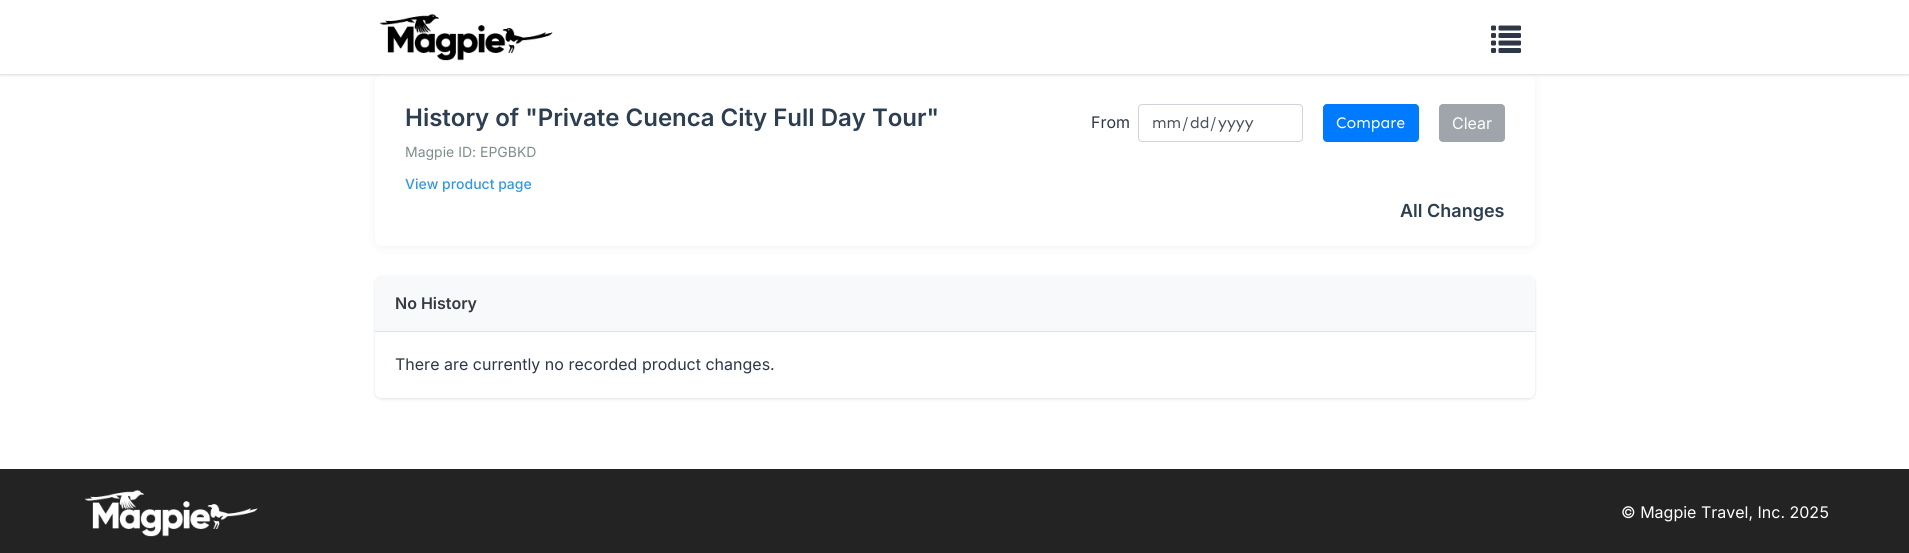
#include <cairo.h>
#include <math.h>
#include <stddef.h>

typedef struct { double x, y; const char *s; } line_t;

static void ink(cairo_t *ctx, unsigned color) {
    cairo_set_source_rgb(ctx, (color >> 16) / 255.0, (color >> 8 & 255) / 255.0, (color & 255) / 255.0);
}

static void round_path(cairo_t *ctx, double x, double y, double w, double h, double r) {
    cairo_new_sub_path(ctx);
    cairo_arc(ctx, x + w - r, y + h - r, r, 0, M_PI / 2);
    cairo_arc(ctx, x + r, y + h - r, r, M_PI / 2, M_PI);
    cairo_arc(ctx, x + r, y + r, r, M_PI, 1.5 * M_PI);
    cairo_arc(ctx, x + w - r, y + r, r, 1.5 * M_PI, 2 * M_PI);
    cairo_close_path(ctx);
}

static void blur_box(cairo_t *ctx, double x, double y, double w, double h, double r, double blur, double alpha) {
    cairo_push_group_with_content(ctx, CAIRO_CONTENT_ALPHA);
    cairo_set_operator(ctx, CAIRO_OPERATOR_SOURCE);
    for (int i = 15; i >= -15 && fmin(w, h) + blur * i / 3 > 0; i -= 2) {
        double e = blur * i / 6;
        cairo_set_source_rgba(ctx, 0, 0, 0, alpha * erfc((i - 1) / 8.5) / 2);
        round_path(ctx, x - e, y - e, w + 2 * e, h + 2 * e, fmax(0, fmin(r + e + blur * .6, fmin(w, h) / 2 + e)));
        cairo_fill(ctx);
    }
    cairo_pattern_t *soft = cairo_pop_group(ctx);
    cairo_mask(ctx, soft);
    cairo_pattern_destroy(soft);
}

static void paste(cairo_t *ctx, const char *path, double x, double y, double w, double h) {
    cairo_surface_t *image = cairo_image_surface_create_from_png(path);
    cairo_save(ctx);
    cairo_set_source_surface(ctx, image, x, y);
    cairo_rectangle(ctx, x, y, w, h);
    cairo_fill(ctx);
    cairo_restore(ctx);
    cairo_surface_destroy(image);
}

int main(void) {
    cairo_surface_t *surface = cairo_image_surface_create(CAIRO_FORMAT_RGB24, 1909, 553);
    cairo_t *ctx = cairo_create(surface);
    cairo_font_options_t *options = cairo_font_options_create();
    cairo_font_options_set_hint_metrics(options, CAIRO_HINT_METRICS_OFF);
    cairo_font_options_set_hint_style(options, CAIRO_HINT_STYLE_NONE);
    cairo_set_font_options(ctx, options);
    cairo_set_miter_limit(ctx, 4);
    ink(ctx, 0xFFFFFF);
    cairo_paint(ctx);
    ink(ctx, 0x000000);
    blur_box(ctx, 375, 76, 1160, 172, 8, 5, 0.05);
    ink(ctx, 0xFFFFFF);
    round_path(ctx, 375, 74, 1160, 172, 8);
    cairo_fill(ctx);
    ink(ctx, 0x000000);
    blur_box(ctx, 0, 1, 1909, 74, 0, 1, 0.06);
    blur_box(ctx, 0, 1, 1909, 74, 0, 1.5, 0.1);
    ink(ctx, 0xFFFFFF);
    cairo_rectangle(ctx, 0, 0, 1909, 74);
    cairo_fill(ctx);
    paste(ctx, "media/1.png", 379, 13, 174, 48);
    paste(ctx, "media/2.png", 1491, 25, 30, 28);
    cairo_select_font_face(ctx, "Inter SemiBold", CAIRO_FONT_SLANT_NORMAL, CAIRO_FONT_WEIGHT_NORMAL);
    cairo_set_font_size(ctx, 24);
    ink(ctx, 0x2C3E50);
    cairo_move_to(ctx, 405, 126);
    cairo_show_text(ctx, "History of \"Private Cuenca City Full Day Tour\"");
    cairo_select_font_face(ctx, "Inter", CAIRO_FONT_SLANT_NORMAL, CAIRO_FONT_WEIGHT_NORMAL);
    cairo_set_font_size(ctx, 14);
    ink(ctx, 0x7F8C8D);
    cairo_move_to(ctx, 405, 157);
    cairo_show_text(ctx, "Magpie ID: EPGBKD");
    cairo_select_font_face(ctx, "Inter Medium", CAIRO_FONT_SLANT_NORMAL, CAIRO_FONT_WEIGHT_NORMAL);
    ink(ctx, 0x3498DB);
    cairo_move_to(ctx, 405, 189);
    cairo_show_text(ctx, "View product page");
    cairo_select_font_face(ctx, "Inter", CAIRO_FONT_SLANT_NORMAL, CAIRO_FONT_WEIGHT_NORMAL);
    cairo_set_font_size(ctx, 16);
    ink(ctx, 0x2D3748);
    cairo_move_to(ctx, 1091, 128);
    cairo_show_text(ctx, "From");
    round_path(ctx, 1138.5, 104.5, 164, 37, 3.5);
    ink(ctx, 0xCED4DA);
    cairo_set_line_width(ctx, 1);
    cairo_stroke(ctx);
    cairo_select_font_face(ctx, "Sen", CAIRO_FONT_SLANT_NORMAL, CAIRO_FONT_WEIGHT_NORMAL);
    ink(ctx, 0x495057);
    {
        static const line_t items[] = {
            {1152, 128, "mm"},
            {1182, 128, "/"},
            {1190, 128, "dd"},
            {1210, 128, "/"},
            {1218, 128, "yyyy"},
        };
        for (size_t i = 0; i < sizeof items / sizeof *items; i++) {
            cairo_move_to(ctx, items[i].x, items[i].y);
            cairo_show_text(ctx, items[i].s);
        }
    }
    ink(ctx, 0x007BFF);
    round_path(ctx, 1323.5, 104.5, 95, 37, 3.5);
    cairo_fill_preserve(ctx);
    cairo_stroke(ctx);
    ink(ctx, 0xFFFFFF);
    cairo_move_to(ctx, 1336, 128);
    cairo_show_text(ctx, "Compare");
    ink(ctx, 0x9FA5AB);
    round_path(ctx, 1439.5, 104.5, 65, 37, 3.5);
    cairo_fill_preserve(ctx);
    cairo_stroke(ctx);
    cairo_select_font_face(ctx, "Inter", CAIRO_FONT_SLANT_NORMAL, CAIRO_FONT_WEIGHT_NORMAL);
    ink(ctx, 0xFFFFFF);
    cairo_move_to(ctx, 1452, 129);
    cairo_show_text(ctx, "Clear");
    cairo_select_font_face(ctx, "Inter SemiBold", CAIRO_FONT_SLANT_NORMAL, CAIRO_FONT_WEIGHT_NORMAL);
    cairo_set_font_size(ctx, 18);
    ink(ctx, 0x2C3E50);
    cairo_move_to(ctx, 1400, 217);
    cairo_show_text(ctx, "All Changes");
    ink(ctx, 0x000000);
    blur_box(ctx, 375, 277, 1160, 122, 6, 1.5, 0.12);
    ink(ctx, 0xFFFFFF);
    round_path(ctx, 375, 276, 1160, 122, 6);
    cairo_fill(ctx);
    ink(ctx, 0xF8F9FA);
    cairo_new_path(ctx);
    cairo_move_to(ctx, 381, 276);
    cairo_line_to(ctx, 1529, 276);
    cairo_curve_to(ctx, 1532.5, 276, 1535, 278.5, 1535, 282);
    cairo_line_to(ctx, 1535, 331);
    cairo_line_to(ctx, 375, 331);
    cairo_line_to(ctx, 375, 282);
    cairo_curve_to(ctx, 375, 278.5, 377.5, 276, 381, 276);
    cairo_close_path(ctx);
    cairo_fill(ctx);
    ink(ctx, 0xDEE2E6);
    cairo_rectangle(ctx, 375, 331, 1160, 1);
    cairo_fill(ctx);
    cairo_set_font_size(ctx, 16);
    ink(ctx, 0x343A40);
    cairo_move_to(ctx, 395, 309);
    cairo_show_text(ctx, "No History");
    cairo_select_font_face(ctx, "Inter", CAIRO_FONT_SLANT_NORMAL, CAIRO_FONT_WEIGHT_NORMAL);
    ink(ctx, 0x2D3748);
    cairo_move_to(ctx, 395, 370);
    cairo_show_text(ctx, "There are currently no recorded product changes.");
    ink(ctx, 0x232323);
    cairo_rectangle(ctx, 0, 469, 1909, 84);
    cairo_fill(ctx);
    paste(ctx, "media/3.png", 84, 489, 174, 48);
    ink(ctx, 0xFFFFFF);
    cairo_move_to(ctx, 1621, 518);
    cairo_show_text(ctx, "© Magpie Travel, Inc. 2025");
    cairo_surface_write_to_png(surface, "image.png");
    cairo_font_options_destroy(options);
    cairo_destroy(ctx);
    cairo_surface_destroy(surface);
    return 0;
}
